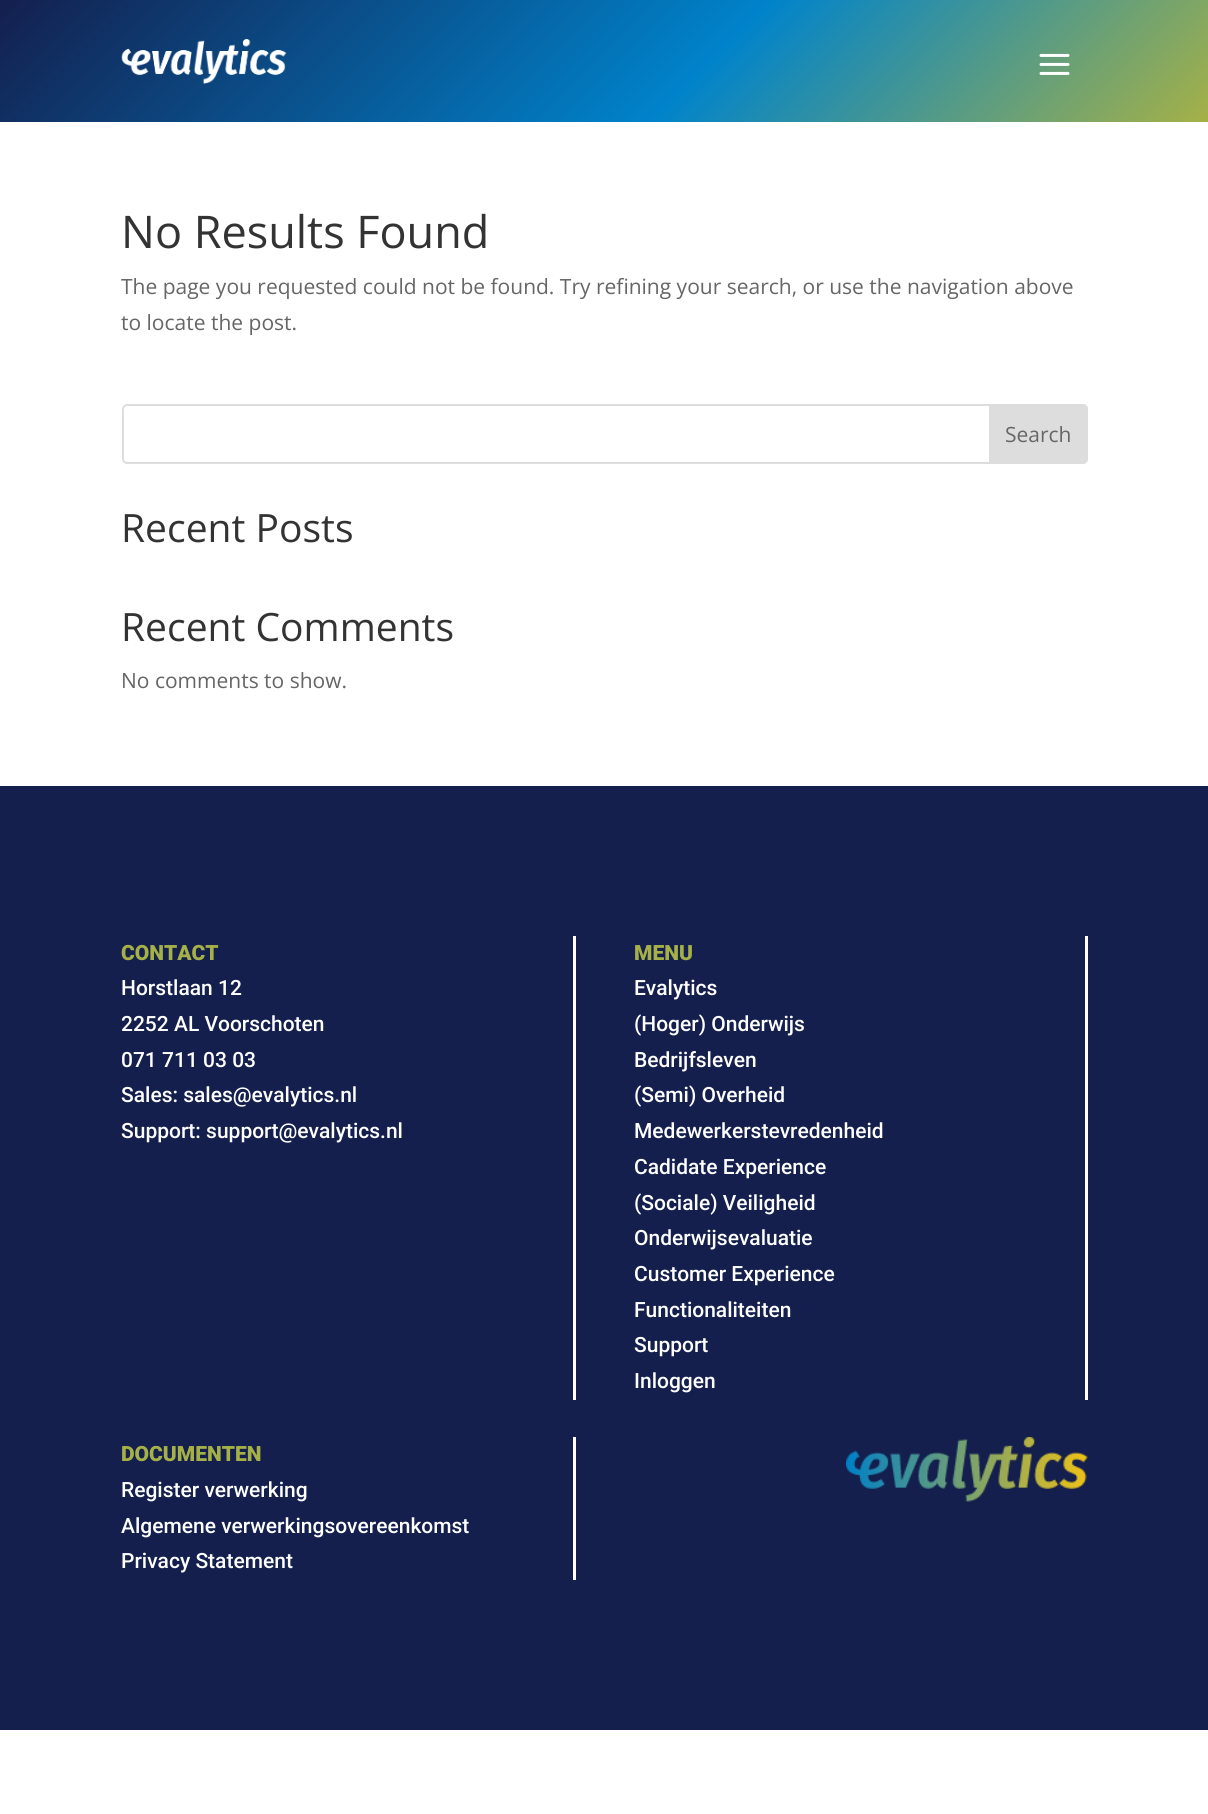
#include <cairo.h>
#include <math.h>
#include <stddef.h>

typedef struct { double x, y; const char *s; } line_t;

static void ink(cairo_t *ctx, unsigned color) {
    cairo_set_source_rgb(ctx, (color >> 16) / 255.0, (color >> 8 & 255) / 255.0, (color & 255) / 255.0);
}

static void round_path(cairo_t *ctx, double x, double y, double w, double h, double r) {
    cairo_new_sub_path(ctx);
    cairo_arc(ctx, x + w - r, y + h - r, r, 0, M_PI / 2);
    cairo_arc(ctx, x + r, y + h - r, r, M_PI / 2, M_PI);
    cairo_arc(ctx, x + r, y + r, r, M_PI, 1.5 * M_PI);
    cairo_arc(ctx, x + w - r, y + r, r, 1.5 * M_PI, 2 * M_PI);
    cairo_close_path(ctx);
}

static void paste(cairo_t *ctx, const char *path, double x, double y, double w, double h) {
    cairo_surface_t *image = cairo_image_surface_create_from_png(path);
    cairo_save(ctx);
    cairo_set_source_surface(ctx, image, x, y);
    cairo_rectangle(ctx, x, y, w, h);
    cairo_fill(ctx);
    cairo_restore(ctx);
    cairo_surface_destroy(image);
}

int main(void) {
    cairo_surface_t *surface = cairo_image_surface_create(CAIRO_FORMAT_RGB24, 1208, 1814);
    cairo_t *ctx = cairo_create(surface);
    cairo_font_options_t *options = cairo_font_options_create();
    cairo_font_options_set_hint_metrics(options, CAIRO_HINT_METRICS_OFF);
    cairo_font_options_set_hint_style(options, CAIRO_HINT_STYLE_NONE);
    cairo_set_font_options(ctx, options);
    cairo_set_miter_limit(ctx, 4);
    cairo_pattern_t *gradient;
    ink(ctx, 0xFFFFFF);
    cairo_paint(ctx);
    gradient = cairo_pattern_create_linear(272, -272, 937, 393);
    cairo_pattern_add_color_stop_rgba(gradient, 0, 0.078, 0.122, 0.306, 1);
    cairo_pattern_add_color_stop_rgba(gradient, 0.58, 0, 0.514, 0.796, 1);
    cairo_pattern_add_color_stop_rgba(gradient, 1, 0.647, 0.694, 0.278, 1);
    cairo_set_source(ctx, gradient);
    cairo_pattern_destroy(gradient);
    cairo_rectangle(ctx, 0, 0, 1208, 122);
    cairo_fill(ctx);
    paste(ctx, "media/1.png", 121, 39, 166, 45);
    paste(ctx, "media/2.png", 1039, 53, 31, 22);
    cairo_select_font_face(ctx, "Open Sans", CAIRO_FONT_SLANT_NORMAL, CAIRO_FONT_WEIGHT_NORMAL);
    cairo_set_font_size(ctx, 45);
    ink(ctx, 0x333333);
    cairo_move_to(ctx, 121, 248);
    cairo_show_text(ctx, "No Results Found");
    cairo_set_font_size(ctx, 21);
    ink(ctx, 0x666666);
    cairo_move_to(ctx, 121, 294);
    cairo_show_text(ctx, "The page you requested could not be found. Try refining your search, or use the navigation above");
    cairo_move_to(ctx, 121, 330);
    cairo_show_text(ctx, "to locate the post.");
    round_path(ctx, 123, 405, 964, 58, 4);
    ink(ctx, 0xDDDDDD);
    cairo_stroke(ctx);
    cairo_new_path(ctx);
    cairo_move_to(ctx, 990, 405);
    cairo_line_to(ctx, 1083, 405);
    cairo_curve_to(ctx, 1085, 405, 1087, 407, 1087, 409);
    cairo_line_to(ctx, 1087, 459);
    cairo_curve_to(ctx, 1087, 461, 1085, 463, 1083, 463);
    cairo_line_to(ctx, 990, 463);
    cairo_close_path(ctx);
    cairo_fill_preserve(ctx);
    cairo_stroke(ctx);
    ink(ctx, 0x666666);
    cairo_move_to(ctx, 1005, 442);
    cairo_show_text(ctx, "Search");
    cairo_set_font_size(ctx, 39);
    ink(ctx, 0x333333);
    cairo_move_to(ctx, 121, 542);
    cairo_show_text(ctx, "Recent Posts");
    cairo_move_to(ctx, 121, 641);
    cairo_show_text(ctx, "Recent Comments");
    cairo_set_font_size(ctx, 21);
    ink(ctx, 0x666666);
    cairo_move_to(ctx, 121, 688);
    cairo_show_text(ctx, "No comments to show.");
    ink(ctx, 0x141F4E);
    cairo_rectangle(ctx, 0, 786, 1208, 944);
    cairo_fill(ctx);
    ink(ctx, 0xFFFFFF);
    cairo_rectangle(ctx, 573, 936, 3, 464);
    cairo_fill(ctx);
    cairo_select_font_face(ctx, "Roboto Black", CAIRO_FONT_SLANT_NORMAL, CAIRO_FONT_WEIGHT_NORMAL);
    ink(ctx, 0xA5B147);
    cairo_move_to(ctx, 121, 960);
    cairo_show_text(ctx, "CONTACT");
    cairo_select_font_face(ctx, "Roboto Medium", CAIRO_FONT_SLANT_NORMAL, CAIRO_FONT_WEIGHT_NORMAL);
    ink(ctx, 0xFFFFFF);
    {
        static const line_t items[] = {
            {121, 995, "Horstlaan 12"},
            {121, 1031, "2252 AL Voorschoten"},
            {121, 1067, "071 711 03 03"},
            {121, 1102, "Sales: sales@evalytics.nl"},
            {121, 1138, "Support: support@evalytics.nl"},
        };
        for (size_t i = 0; i < sizeof items / sizeof *items; i++) {
            cairo_move_to(ctx, items[i].x, items[i].y);
            cairo_show_text(ctx, items[i].s);
        }
    }
    cairo_rectangle(ctx, 1085, 936, 3, 464);
    cairo_fill(ctx);
    cairo_select_font_face(ctx, "Roboto Black", CAIRO_FONT_SLANT_NORMAL, CAIRO_FONT_WEIGHT_NORMAL);
    ink(ctx, 0xA5B147);
    cairo_move_to(ctx, 634, 960);
    cairo_show_text(ctx, "MENU");
    cairo_select_font_face(ctx, "Roboto Medium", CAIRO_FONT_SLANT_NORMAL, CAIRO_FONT_WEIGHT_NORMAL);
    ink(ctx, 0xFFFFFF);
    {
        static const line_t items[] = {
            {634, 995, "Evalytics"},
            {634, 1031, "(Hoger) Onderwijs"},
            {634, 1067, "Bedrijfsleven"},
            {634, 1102, "(Semi) Overheid"},
            {634, 1138, "Medewerkerstevredenheid"},
            {634, 1174, "Cadidate Experience"},
            {634, 1210, "(Sociale) Veiligheid"},
            {634, 1245, "Onderwijsevaluatie"},
            {634, 1281, "Customer Experience"},
            {634, 1317, "Functionaliteiten"},
            {634, 1352, "Support"},
            {634, 1388, "Inloggen"},
        };
        for (size_t i = 0; i < sizeof items / sizeof *items; i++) {
            cairo_move_to(ctx, items[i].x, items[i].y);
            cairo_show_text(ctx, items[i].s);
        }
    }
    cairo_rectangle(ctx, 573, 1437, 3, 143);
    cairo_fill(ctx);
    cairo_select_font_face(ctx, "Roboto Black", CAIRO_FONT_SLANT_NORMAL, CAIRO_FONT_WEIGHT_NORMAL);
    ink(ctx, 0xA5B147);
    cairo_move_to(ctx, 121, 1461);
    cairo_show_text(ctx, "DOCUMENTEN");
    cairo_select_font_face(ctx, "Roboto Medium", CAIRO_FONT_SLANT_NORMAL, CAIRO_FONT_WEIGHT_NORMAL);
    ink(ctx, 0xFFFFFF);
    {
        static const line_t items[] = {
            {121, 1497, "Register verwerking"},
            {121, 1533, "Algemene verwerkingsovereenkomst"},
            {121, 1568, "Privacy Statement"},
        };
        for (size_t i = 0; i < sizeof items / sizeof *items; i++) {
            cairo_move_to(ctx, items[i].x, items[i].y);
            cairo_show_text(ctx, items[i].s);
        }
    }
    paste(ctx, "media/3.png", 846, 1437, 242, 65);
    cairo_surface_write_to_png(surface, "image.png");
    cairo_font_options_destroy(options);
    cairo_destroy(ctx);
    cairo_surface_destroy(surface);
    return 0;
}
